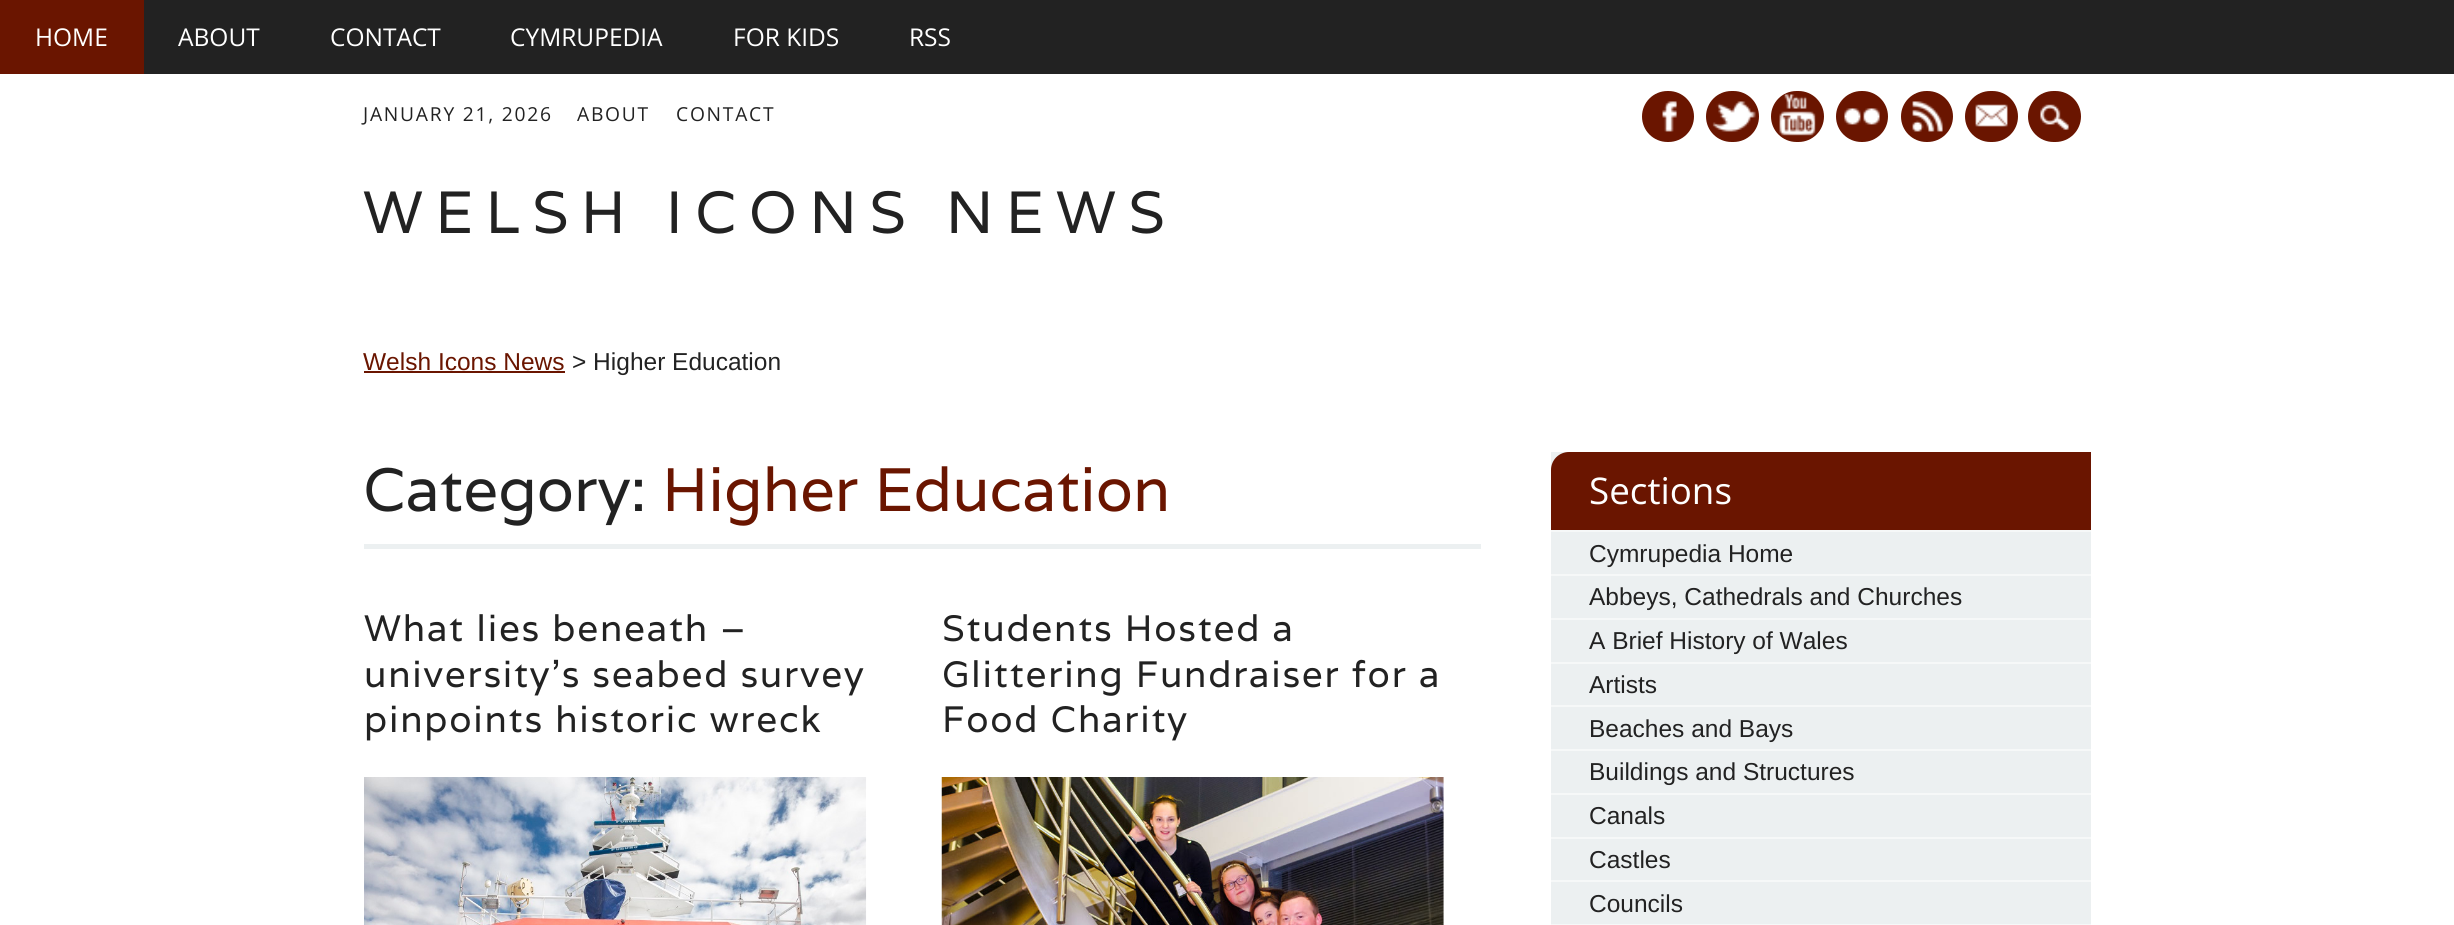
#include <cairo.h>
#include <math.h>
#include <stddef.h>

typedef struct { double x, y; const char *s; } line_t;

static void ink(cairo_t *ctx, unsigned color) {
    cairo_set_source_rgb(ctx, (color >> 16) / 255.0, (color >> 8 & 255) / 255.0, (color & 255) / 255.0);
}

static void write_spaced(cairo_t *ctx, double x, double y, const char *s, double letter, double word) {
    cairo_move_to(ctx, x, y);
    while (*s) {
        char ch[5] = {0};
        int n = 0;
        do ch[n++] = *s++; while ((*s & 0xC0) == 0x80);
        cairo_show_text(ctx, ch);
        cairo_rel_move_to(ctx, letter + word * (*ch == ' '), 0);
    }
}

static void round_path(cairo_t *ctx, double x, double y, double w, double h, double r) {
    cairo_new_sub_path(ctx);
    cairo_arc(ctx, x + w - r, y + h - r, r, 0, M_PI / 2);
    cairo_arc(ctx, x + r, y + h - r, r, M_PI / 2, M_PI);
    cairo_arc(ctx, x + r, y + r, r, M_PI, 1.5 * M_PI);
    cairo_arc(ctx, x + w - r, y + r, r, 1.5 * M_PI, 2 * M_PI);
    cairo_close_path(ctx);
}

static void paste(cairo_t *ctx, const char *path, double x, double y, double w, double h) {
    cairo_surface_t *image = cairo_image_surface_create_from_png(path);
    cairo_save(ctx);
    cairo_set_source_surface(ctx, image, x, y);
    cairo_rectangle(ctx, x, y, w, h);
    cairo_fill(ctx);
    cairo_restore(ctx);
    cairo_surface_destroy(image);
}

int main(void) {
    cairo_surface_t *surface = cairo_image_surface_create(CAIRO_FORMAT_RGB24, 2454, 925);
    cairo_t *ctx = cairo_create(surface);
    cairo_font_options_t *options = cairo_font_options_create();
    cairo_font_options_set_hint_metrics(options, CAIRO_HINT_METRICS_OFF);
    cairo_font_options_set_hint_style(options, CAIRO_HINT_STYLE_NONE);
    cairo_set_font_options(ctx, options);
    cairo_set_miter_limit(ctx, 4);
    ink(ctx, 0xFFFFFF);
    cairo_paint(ctx);
    ink(ctx, 0x222222);
    cairo_rectangle(ctx, 144, 0, 2310, 74);
    cairo_fill(ctx);
    ink(ctx, 0x6A1500);
    cairo_rectangle(ctx, 0, 0, 144, 74);
    cairo_fill(ctx);
    cairo_select_font_face(ctx, "Open Sans", CAIRO_FONT_SLANT_NORMAL, CAIRO_FONT_WEIGHT_NORMAL);
    cairo_set_font_size(ctx, 24.5);
    ink(ctx, 0xFFFFFF);
    {
        static const line_t items[] = {
            {35, 46, "HOME"},
            {178, 46, "ABOUT"},
            {330, 46, "CONTACT"},
            {510, 46, "CYMRUPEDIA"},
            {733, 46, "FOR KIDS"},
            {909, 46, "RSS"},
        };
        for (size_t i = 0; i < sizeof items / sizeof *items; i++) {
            cairo_move_to(ctx, items[i].x, items[i].y);
            cairo_show_text(ctx, items[i].s);
        }
    }
    cairo_set_font_size(ctx, 19.25);
    ink(ctx, 0x222222);
    {
        static const line_t items[] = {
            {363, 121, "JANUARY 21, 2026"},
            {577, 121, "ABOUT"},
            {676, 121, "CONTACT"},
        };
        for (size_t i = 0; i < sizeof items / sizeof *items; i++) {
            write_spaced(ctx, items[i].x, items[i].y, items[i].s, 1.75, 0);
        }
    }
    ink(ctx, 0x6A1500);
    round_path(ctx, 1642, 91, 52, 51, 25.5);
    cairo_fill(ctx);
    paste(ctx, "media/1.png", 1662, 101, 15, 31);
    round_path(ctx, 1706, 91, 53, 51, 25.5);
    cairo_fill(ctx);
    paste(ctx, "media/2.png", 1712, 101, 44, 31);
    round_path(ctx, 1771, 91, 53, 51, 25.5);
    cairo_fill(ctx);
    paste(ctx, "media/3.png", 1779, 94, 37, 42);
    round_path(ctx, 1836, 91, 52, 51, 25.5);
    cairo_fill(ctx);
    paste(ctx, "media/4.png", 1844, 108, 36, 17);
    round_path(ctx, 1901, 91, 52, 51, 25.5);
    cairo_fill(ctx);
    paste(ctx, "media/5.png", 1912, 101, 31, 31);
    round_path(ctx, 1965, 91, 53, 51, 25.5);
    cairo_fill(ctx);
    paste(ctx, "media/6.png", 1975, 104, 33, 23);
    round_path(ctx, 2028, 91, 53, 51, 25.5);
    cairo_fill(ctx);
    paste(ctx, "media/7.png", 2040, 104, 29, 26);
    cairo_select_font_face(ctx, "Varela", CAIRO_FONT_SLANT_NORMAL, CAIRO_FONT_WEIGHT_NORMAL);
    cairo_set_font_size(ctx, 59.5);
    ink(ctx, 0x222222);
    write_spaced(ctx, 363, 233, "WELSH ICONS NEWS", 12.25, 0);
    cairo_select_font_face(ctx, "Liberation Sans", CAIRO_FONT_SLANT_NORMAL, CAIRO_FONT_WEIGHT_NORMAL);
    cairo_set_font_size(ctx, 24.5);
    ink(ctx, 0x6A1500);
    cairo_move_to(ctx, 363, 370);
    cairo_show_text(ctx, "Welsh Icons News");
    cairo_rectangle(ctx, 364, 371, 201, 2);
    cairo_fill(ctx);
    ink(ctx, 0x222222);
    cairo_move_to(ctx, 572, 370);
    cairo_show_text(ctx, "> Higher Education");
    ink(ctx, 0xECF0F1);
    cairo_rectangle(ctx, 364, 544, 1117, 5);
    cairo_fill(ctx);
    cairo_select_font_face(ctx, "Varela", CAIRO_FONT_SLANT_NORMAL, CAIRO_FONT_WEIGHT_NORMAL);
    cairo_set_font_size(ctx, 61.25);
    ink(ctx, 0x222222);
    cairo_move_to(ctx, 363, 511);
    cairo_show_text(ctx, "Category:");
    ink(ctx, 0x6A1500);
    cairo_move_to(ctx, 662, 511);
    cairo_show_text(ctx, "Higher Education");
    cairo_set_font_size(ctx, 36.75);
    ink(ctx, 0x222222);
    {
        static const line_t items[] = {
            {364, 641, "What lies beneath –"},
            {364, 687, "university’s seabed survey"},
            {364, 732, "pinpoints historic wreck"},
        };
        for (size_t i = 0; i < sizeof items / sizeof *items; i++) {
            write_spaced(ctx, items[i].x, items[i].y, items[i].s, 1.75, 0);
        }
    }
    paste(ctx, "media/8.png", 364, 777, 503, 148);
    {
        static const line_t items[] = {
            {942, 641, "Students Hosted a"},
            {942, 687, "Glittering Fundraiser for a"},
            {942, 732, "Food Charity"},
        };
        for (size_t i = 0; i < sizeof items / sizeof *items; i++) {
            write_spaced(ctx, items[i].x, items[i].y, items[i].s, 1.75, 0);
        }
    }
    paste(ctx, "media/9.png", 941, 777, 503, 148);
    ink(ctx, 0xECF0F1);
    cairo_rectangle(ctx, 1551, 452, 540, 472);
    cairo_fill(ctx);
    ink(ctx, 0x6A1500);
    cairo_new_path(ctx);
    cairo_move_to(ctx, 1569, 452);
    cairo_line_to(ctx, 2091, 452);
    cairo_line_to(ctx, 2091, 530);
    cairo_line_to(ctx, 1551, 530);
    cairo_line_to(ctx, 1551, 470);
    cairo_curve_to(ctx, 1551, 460, 1559, 452, 1569, 452);
    cairo_close_path(ctx);
    cairo_fill(ctx);
    cairo_select_font_face(ctx, "Open Sans", CAIRO_FONT_SLANT_NORMAL, CAIRO_FONT_WEIGHT_NORMAL);
    ink(ctx, 0xFFFFFF);
    cairo_move_to(ctx, 1589, 504);
    cairo_show_text(ctx, "Sections");
    ink(ctx, 0xF6F8F8);
    cairo_rectangle(ctx, 1551, 530, 540, 2);
    cairo_fill(ctx);
    cairo_select_font_face(ctx, "Liberation Sans", CAIRO_FONT_SLANT_NORMAL, CAIRO_FONT_WEIGHT_NORMAL);
    cairo_set_font_size(ctx, 24.5);
    ink(ctx, 0x222222);
    cairo_move_to(ctx, 1589, 562);
    cairo_show_text(ctx, "Cymrupedia Home");
    ink(ctx, 0xF6F8F8);
    cairo_rectangle(ctx, 1551, 574, 540, 2);
    cairo_fill(ctx);
    ink(ctx, 0x222222);
    cairo_move_to(ctx, 1589, 605);
    cairo_show_text(ctx, "Abbeys, Cathedrals and Churches");
    ink(ctx, 0xF6F8F8);
    cairo_rectangle(ctx, 1551, 618, 540, 2);
    cairo_fill(ctx);
    ink(ctx, 0x222222);
    cairo_move_to(ctx, 1589, 649);
    cairo_show_text(ctx, "A Brief History of Wales");
    ink(ctx, 0xF6F8F8);
    cairo_rectangle(ctx, 1551, 662, 540, 2);
    cairo_fill(ctx);
    ink(ctx, 0x222222);
    cairo_move_to(ctx, 1589, 693);
    cairo_show_text(ctx, "Artists");
    ink(ctx, 0xF6F8F8);
    cairo_rectangle(ctx, 1551, 705, 540, 2);
    cairo_fill(ctx);
    ink(ctx, 0x222222);
    cairo_move_to(ctx, 1589, 737);
    cairo_show_text(ctx, "Beaches and Bays");
    ink(ctx, 0xF6F8F8);
    cairo_rectangle(ctx, 1551, 749, 540, 2);
    cairo_fill(ctx);
    ink(ctx, 0x222222);
    cairo_move_to(ctx, 1589, 780);
    cairo_show_text(ctx, "Buildings and Structures");
    ink(ctx, 0xF6F8F8);
    cairo_rectangle(ctx, 1551, 793, 540, 2);
    cairo_fill(ctx);
    ink(ctx, 0x222222);
    cairo_move_to(ctx, 1589, 824);
    cairo_show_text(ctx, "Canals");
    ink(ctx, 0xF6F8F8);
    cairo_rectangle(ctx, 1551, 837, 540, 2);
    cairo_fill(ctx);
    ink(ctx, 0x222222);
    cairo_move_to(ctx, 1589, 868);
    cairo_show_text(ctx, "Castles");
    ink(ctx, 0xF6F8F8);
    cairo_rectangle(ctx, 1551, 880, 540, 2);
    cairo_fill(ctx);
    ink(ctx, 0x222222);
    cairo_move_to(ctx, 1589, 912);
    cairo_show_text(ctx, "Councils");
    ink(ctx, 0xF6F8F8);
    cairo_rectangle(ctx, 1551, 924, 540, 1);
    cairo_fill(ctx);
    cairo_surface_write_to_png(surface, "image.png");
    cairo_font_options_destroy(options);
    cairo_destroy(ctx);
    cairo_surface_destroy(surface);
    return 0;
}
